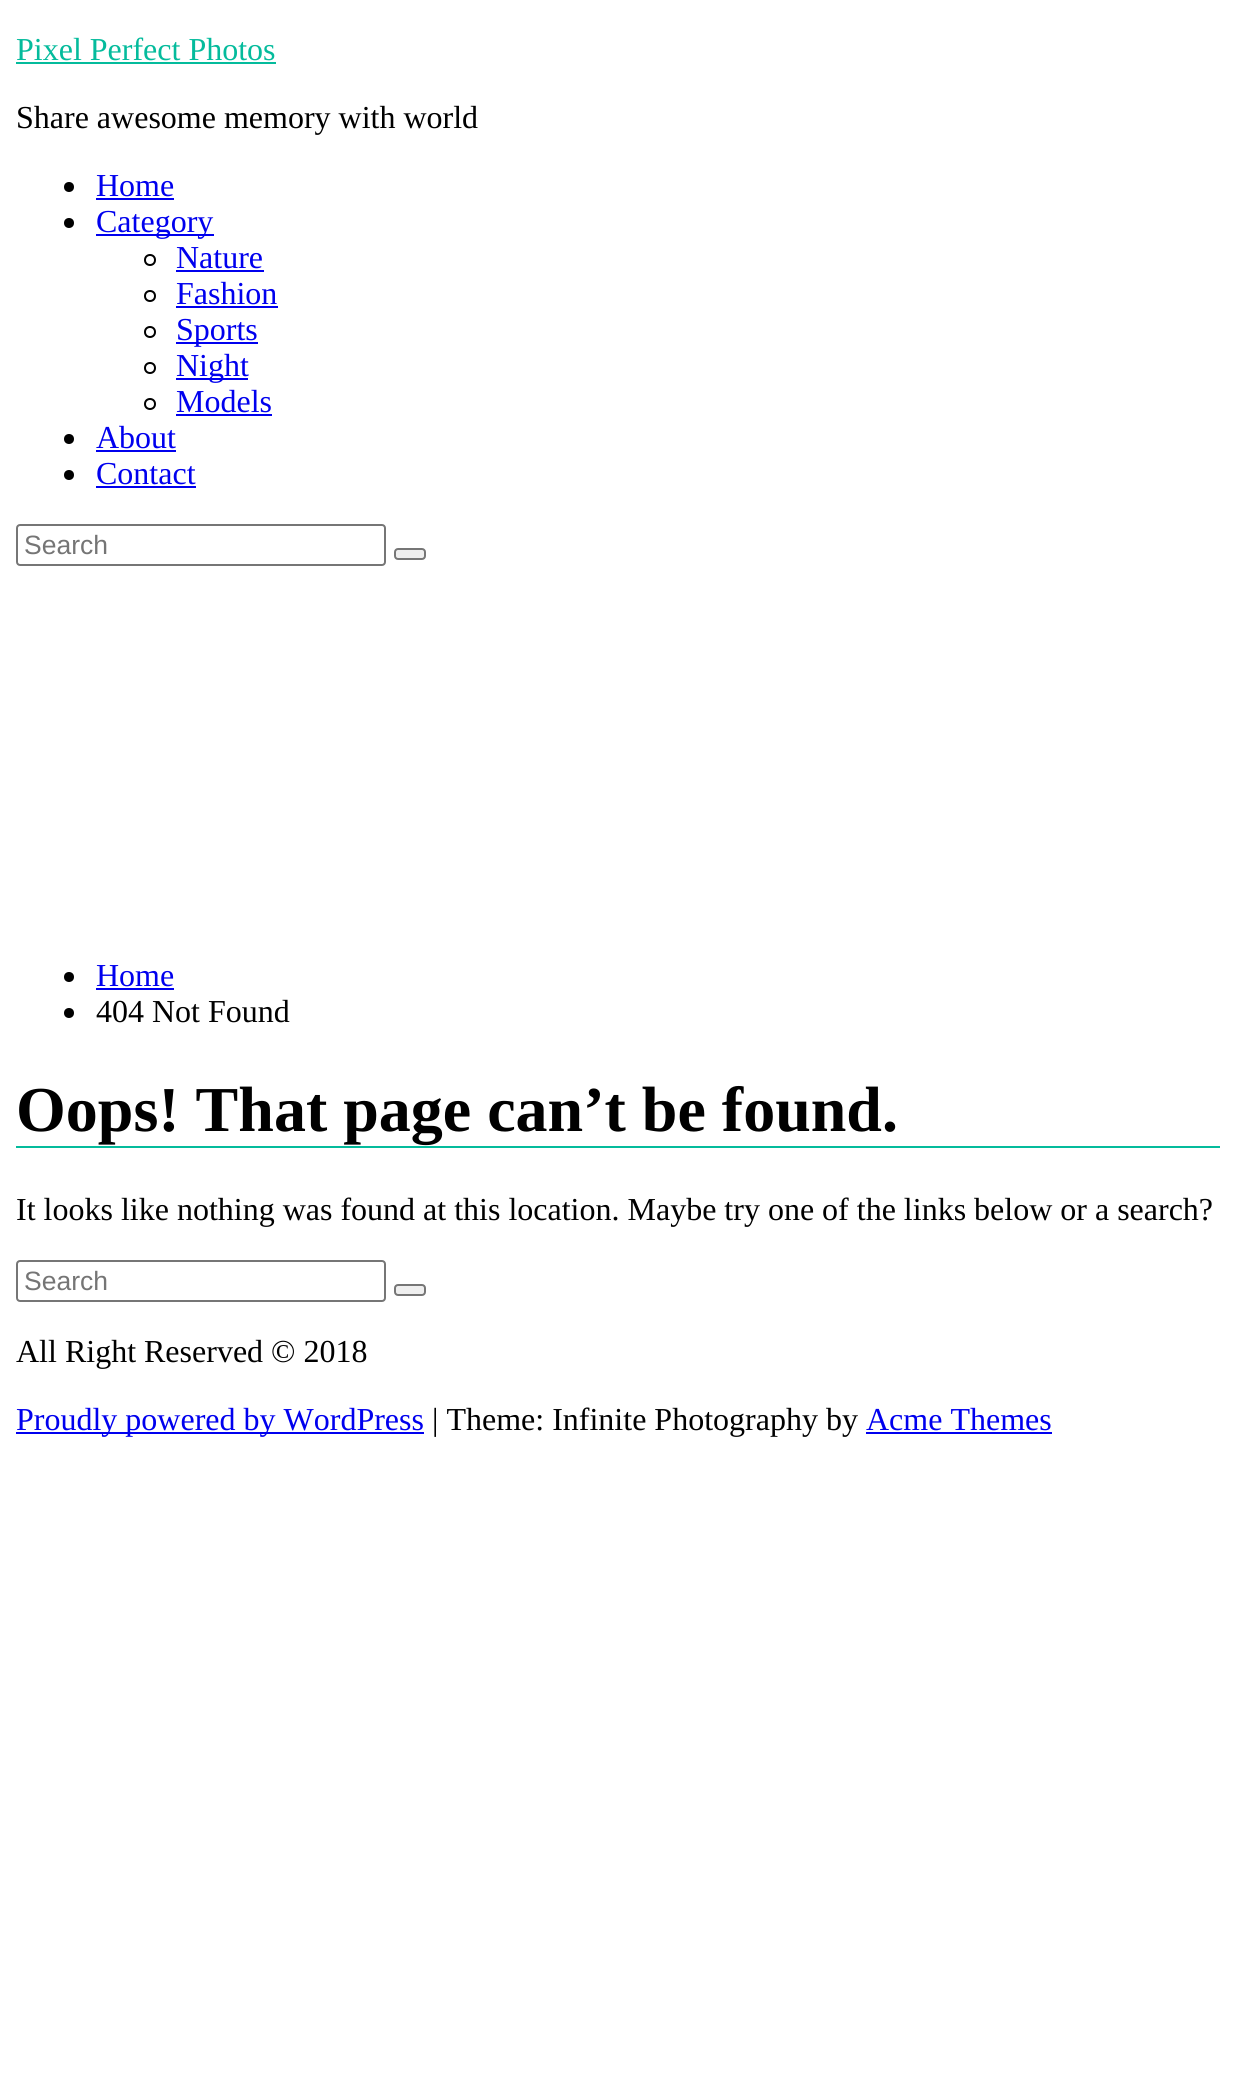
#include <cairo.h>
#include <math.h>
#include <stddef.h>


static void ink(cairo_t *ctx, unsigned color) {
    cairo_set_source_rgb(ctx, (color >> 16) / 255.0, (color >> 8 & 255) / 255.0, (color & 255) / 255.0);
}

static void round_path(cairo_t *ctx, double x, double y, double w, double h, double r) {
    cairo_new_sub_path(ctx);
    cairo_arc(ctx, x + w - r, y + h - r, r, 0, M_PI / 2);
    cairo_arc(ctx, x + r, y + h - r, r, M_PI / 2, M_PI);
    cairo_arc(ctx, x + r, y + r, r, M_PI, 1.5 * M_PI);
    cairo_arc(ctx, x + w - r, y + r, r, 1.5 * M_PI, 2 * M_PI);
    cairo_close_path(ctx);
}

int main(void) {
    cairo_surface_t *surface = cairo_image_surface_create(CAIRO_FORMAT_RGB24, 1236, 2085);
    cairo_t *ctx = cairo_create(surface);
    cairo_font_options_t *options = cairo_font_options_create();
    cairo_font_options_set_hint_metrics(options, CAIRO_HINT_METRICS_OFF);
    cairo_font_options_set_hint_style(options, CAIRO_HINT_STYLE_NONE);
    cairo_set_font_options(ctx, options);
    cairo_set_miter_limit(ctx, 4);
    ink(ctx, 0xFFFFFF);
    cairo_paint(ctx);
    cairo_select_font_face(ctx, "Liberation Serif", CAIRO_FONT_SLANT_NORMAL, CAIRO_FONT_WEIGHT_NORMAL);
    cairo_set_font_size(ctx, 32);
    ink(ctx, 0x04BB9C);
    cairo_move_to(ctx, 16, 60);
    cairo_show_text(ctx, "Pixel Perfect Photos");
    cairo_rectangle(ctx, 16, 62, 260, 2);
    cairo_fill(ctx);
    ink(ctx, 0x000000);
    cairo_move_to(ctx, 16, 128);
    cairo_show_text(ctx, "Share awesome memory with world");
    cairo_new_path(ctx);
    cairo_arc(ctx, 69, 187, 5, 0, 2 * M_PI);
    cairo_fill(ctx);
    ink(ctx, 0x0000EE);
    cairo_move_to(ctx, 96, 196);
    cairo_show_text(ctx, "Home");
    cairo_rectangle(ctx, 96, 198, 78, 2);
    cairo_fill(ctx);
    ink(ctx, 0x000000);
    cairo_arc(ctx, 69, 223, 5, 0, 2 * M_PI);
    cairo_fill(ctx);
    ink(ctx, 0x0000EE);
    cairo_rectangle(ctx, 96, 234, 118, 2);
    cairo_fill(ctx);
    cairo_move_to(ctx, 96, 232);
    cairo_show_text(ctx, "Category");
    cairo_new_path(ctx);
    cairo_arc(ctx, 150, 260, 5, 0, 2 * M_PI);
    ink(ctx, 0x000000);
    cairo_stroke(ctx);
    ink(ctx, 0x0000EE);
    cairo_move_to(ctx, 176, 268);
    cairo_show_text(ctx, "Nature");
    cairo_rectangle(ctx, 176, 270, 88, 2);
    cairo_fill(ctx);
    cairo_arc(ctx, 150, 296, 5, 0, 2 * M_PI);
    ink(ctx, 0x000000);
    cairo_stroke(ctx);
    ink(ctx, 0x0000EE);
    cairo_move_to(ctx, 176, 304);
    cairo_show_text(ctx, "Fashion");
    cairo_rectangle(ctx, 176, 306, 102, 2);
    cairo_fill(ctx);
    cairo_arc(ctx, 150, 332, 5, 0, 2 * M_PI);
    ink(ctx, 0x000000);
    cairo_stroke(ctx);
    ink(ctx, 0x0000EE);
    cairo_rectangle(ctx, 176, 342, 82, 2);
    cairo_fill(ctx);
    cairo_move_to(ctx, 176, 340);
    cairo_show_text(ctx, "Sports");
    cairo_new_path(ctx);
    cairo_arc(ctx, 150, 368, 5, 0, 2 * M_PI);
    ink(ctx, 0x000000);
    cairo_stroke(ctx);
    ink(ctx, 0x0000EE);
    cairo_rectangle(ctx, 176, 378, 72, 2);
    cairo_fill(ctx);
    cairo_move_to(ctx, 176, 376);
    cairo_show_text(ctx, "Night");
    cairo_new_path(ctx);
    cairo_arc(ctx, 150, 404, 5, 0, 2 * M_PI);
    ink(ctx, 0x000000);
    cairo_stroke(ctx);
    ink(ctx, 0x0000EE);
    cairo_move_to(ctx, 176, 412);
    cairo_show_text(ctx, "Models");
    cairo_rectangle(ctx, 176, 414, 96, 2);
    cairo_fill(ctx);
    ink(ctx, 0x000000);
    cairo_arc(ctx, 69, 439, 5, 0, 2 * M_PI);
    cairo_fill(ctx);
    ink(ctx, 0x0000EE);
    cairo_move_to(ctx, 96, 448);
    cairo_show_text(ctx, "About");
    cairo_rectangle(ctx, 96, 450, 80, 2);
    cairo_fill(ctx);
    ink(ctx, 0x000000);
    cairo_arc(ctx, 69, 475, 5, 0, 2 * M_PI);
    cairo_fill(ctx);
    ink(ctx, 0x0000EE);
    cairo_move_to(ctx, 96, 484);
    cairo_show_text(ctx, "Contact");
    cairo_rectangle(ctx, 96, 486, 100, 2);
    cairo_fill(ctx);
    round_path(ctx, 17, 525, 368, 40, 3);
    ink(ctx, 0x767676);
    cairo_stroke(ctx);
    cairo_select_font_face(ctx, "Liberation Sans", CAIRO_FONT_SLANT_NORMAL, CAIRO_FONT_WEIGHT_NORMAL);
    cairo_set_font_size(ctx, 26.5);
    ink(ctx, 0x757575);
    cairo_move_to(ctx, 24, 554);
    cairo_show_text(ctx, "Search");
    ink(ctx, 0xEFEFEF);
    round_path(ctx, 395, 549, 30, 10, 3);
    cairo_fill_preserve(ctx);
    ink(ctx, 0x767676);
    cairo_stroke(ctx);
    ink(ctx, 0x000000);
    cairo_arc(ctx, 69, 977, 5, 0, 2 * M_PI);
    cairo_fill(ctx);
    cairo_select_font_face(ctx, "Liberation Serif", CAIRO_FONT_SLANT_NORMAL, CAIRO_FONT_WEIGHT_NORMAL);
    cairo_set_font_size(ctx, 32);
    ink(ctx, 0x0000EE);
    cairo_move_to(ctx, 96, 986);
    cairo_show_text(ctx, "Home");
    cairo_rectangle(ctx, 96, 988, 78, 2);
    cairo_fill(ctx);
    ink(ctx, 0x000000);
    cairo_arc(ctx, 69, 1013, 5, 0, 2 * M_PI);
    cairo_fill(ctx);
    cairo_move_to(ctx, 96, 1022);
    cairo_show_text(ctx, "404 Not Found");
    ink(ctx, 0x04BB9C);
    cairo_rectangle(ctx, 16, 1146, 1204, 2);
    cairo_fill(ctx);
    cairo_select_font_face(ctx, "Liberation Serif", CAIRO_FONT_SLANT_NORMAL, CAIRO_FONT_WEIGHT_BOLD);
    cairo_set_font_size(ctx, 64);
    ink(ctx, 0x000000);
    cairo_move_to(ctx, 16, 1131);
    cairo_show_text(ctx, "Oops! That page can’t be found.");
    cairo_select_font_face(ctx, "Liberation Serif", CAIRO_FONT_SLANT_NORMAL, CAIRO_FONT_WEIGHT_NORMAL);
    cairo_set_font_size(ctx, 32);
    cairo_move_to(ctx, 16, 1220);
    cairo_show_text(ctx, "It looks like nothing was found at this location. Maybe try one of the links below or a search?");
    round_path(ctx, 17, 1261, 368, 40, 3);
    ink(ctx, 0x767676);
    cairo_stroke(ctx);
    cairo_select_font_face(ctx, "Liberation Sans", CAIRO_FONT_SLANT_NORMAL, CAIRO_FONT_WEIGHT_NORMAL);
    cairo_set_font_size(ctx, 26.5);
    ink(ctx, 0x757575);
    cairo_move_to(ctx, 24, 1290);
    cairo_show_text(ctx, "Search");
    ink(ctx, 0xEFEFEF);
    round_path(ctx, 395, 1285, 30, 10, 3);
    cairo_fill_preserve(ctx);
    ink(ctx, 0x767676);
    cairo_stroke(ctx);
    cairo_select_font_face(ctx, "Liberation Serif", CAIRO_FONT_SLANT_NORMAL, CAIRO_FONT_WEIGHT_NORMAL);
    cairo_set_font_size(ctx, 32);
    ink(ctx, 0x000000);
    cairo_move_to(ctx, 16, 1362);
    cairo_show_text(ctx, "All Right Reserved © 2018");
    ink(ctx, 0x0000EE);
    cairo_rectangle(ctx, 16, 1432, 408, 2);
    cairo_fill(ctx);
    cairo_move_to(ctx, 16, 1430);
    cairo_show_text(ctx, "Proudly powered by WordPress");
    ink(ctx, 0x000000);
    cairo_move_to(ctx, 432, 1430);
    cairo_show_text(ctx, "| Theme: Infinite Photography by");
    ink(ctx, 0x0000EE);
    cairo_move_to(ctx, 866, 1430);
    cairo_show_text(ctx, "Acme Themes");
    cairo_rectangle(ctx, 866, 1432, 186, 2);
    cairo_fill(ctx);
    cairo_surface_write_to_png(surface, "image.png");
    cairo_font_options_destroy(options);
    cairo_destroy(ctx);
    cairo_surface_destroy(surface);
    return 0;
}
